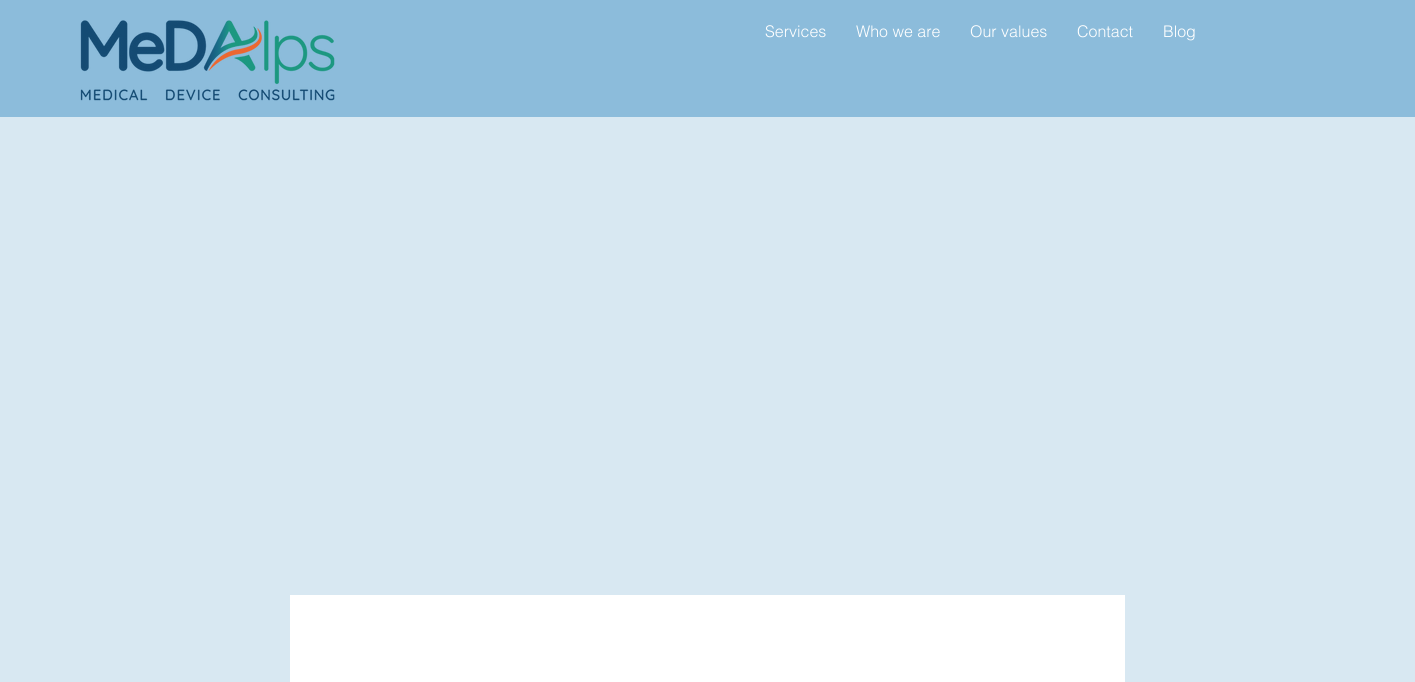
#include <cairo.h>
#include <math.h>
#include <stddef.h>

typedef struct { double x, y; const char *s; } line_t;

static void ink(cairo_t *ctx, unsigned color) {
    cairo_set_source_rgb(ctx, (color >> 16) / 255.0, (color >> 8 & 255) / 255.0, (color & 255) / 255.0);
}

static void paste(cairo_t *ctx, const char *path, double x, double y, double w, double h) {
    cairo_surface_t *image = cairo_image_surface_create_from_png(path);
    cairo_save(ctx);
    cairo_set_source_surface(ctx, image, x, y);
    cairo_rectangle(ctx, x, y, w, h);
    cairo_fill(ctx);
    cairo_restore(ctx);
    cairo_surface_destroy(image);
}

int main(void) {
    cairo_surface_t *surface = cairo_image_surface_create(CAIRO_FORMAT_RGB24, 1415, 682);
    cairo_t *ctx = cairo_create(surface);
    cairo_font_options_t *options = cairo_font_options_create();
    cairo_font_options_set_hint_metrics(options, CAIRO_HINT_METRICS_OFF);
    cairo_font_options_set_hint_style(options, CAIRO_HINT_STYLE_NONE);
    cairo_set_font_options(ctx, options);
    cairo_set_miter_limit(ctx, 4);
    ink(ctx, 0xD8E8F2);
    cairo_paint(ctx);
    ink(ctx, 0x8CBCDB);
    cairo_rectangle(ctx, 0, 0, 1415, 117);
    cairo_fill(ctx);
    paste(ctx, "media/1.png", 80, 20, 255, 81);
    cairo_select_font_face(ctx, "helvetica Light", CAIRO_FONT_SLANT_NORMAL, CAIRO_FONT_WEIGHT_NORMAL);
    cairo_set_font_size(ctx, 16);
    ink(ctx, 0xFFFFFF);
    {
        static const line_t items[] = {
            {765, 37, "Services"},
            {856, 37, "Who we are"},
            {970, 37, "Our values"},
            {1077, 37, "Contact"},
            {1163, 37, "Blog"},
        };
        for (size_t i = 0; i < sizeof items / sizeof *items; i++) {
            cairo_move_to(ctx, items[i].x, items[i].y);
            cairo_show_text(ctx, items[i].s);
        }
    }
    cairo_rectangle(ctx, 290, 595, 835, 87);
    cairo_fill(ctx);
    cairo_surface_write_to_png(surface, "image.png");
    cairo_font_options_destroy(options);
    cairo_destroy(ctx);
    cairo_surface_destroy(surface);
    return 0;
}
